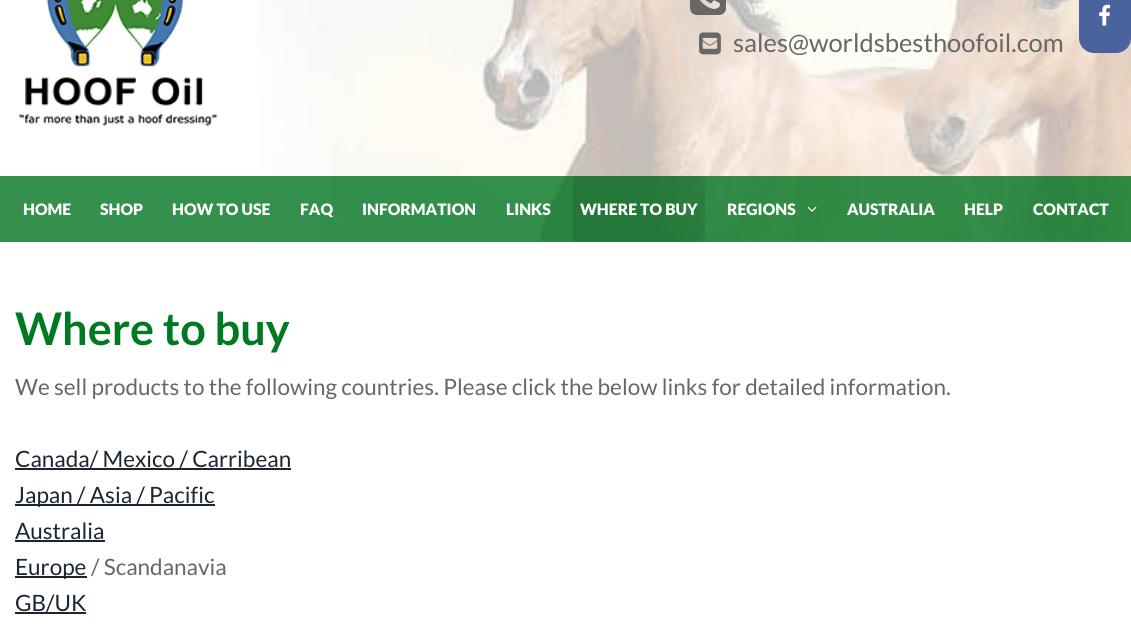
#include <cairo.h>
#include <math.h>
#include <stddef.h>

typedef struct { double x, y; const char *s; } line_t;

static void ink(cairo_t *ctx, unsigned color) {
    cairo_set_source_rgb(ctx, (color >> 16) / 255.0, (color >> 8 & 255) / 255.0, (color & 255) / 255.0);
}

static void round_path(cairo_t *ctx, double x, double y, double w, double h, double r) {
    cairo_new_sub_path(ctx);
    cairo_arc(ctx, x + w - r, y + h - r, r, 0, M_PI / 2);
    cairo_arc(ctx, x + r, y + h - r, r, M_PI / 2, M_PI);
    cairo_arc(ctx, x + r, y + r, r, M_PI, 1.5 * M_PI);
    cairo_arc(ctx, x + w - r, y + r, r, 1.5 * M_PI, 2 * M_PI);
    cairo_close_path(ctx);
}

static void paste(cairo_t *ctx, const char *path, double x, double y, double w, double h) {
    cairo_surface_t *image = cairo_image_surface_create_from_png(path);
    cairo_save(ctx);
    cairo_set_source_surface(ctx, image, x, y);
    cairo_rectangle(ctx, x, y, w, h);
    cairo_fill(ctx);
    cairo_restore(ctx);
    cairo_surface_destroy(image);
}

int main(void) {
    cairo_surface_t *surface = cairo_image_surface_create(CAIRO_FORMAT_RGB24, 1131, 632);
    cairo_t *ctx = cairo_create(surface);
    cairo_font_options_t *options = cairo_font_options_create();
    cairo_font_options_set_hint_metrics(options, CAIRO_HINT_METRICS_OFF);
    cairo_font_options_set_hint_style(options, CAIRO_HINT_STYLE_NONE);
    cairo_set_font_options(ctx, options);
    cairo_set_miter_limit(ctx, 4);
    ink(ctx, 0xFFFFFF);
    cairo_paint(ctx);
    paste(ctx, "media/1.png", 256, 0, 875, 242);
    paste(ctx, "media/2.png", 19, 0, 199, 126);
    paste(ctx, "media/3.png", 690, 0, 36, 15);
    paste(ctx, "media/4.png", 699, 32, 22, 23);
    cairo_select_font_face(ctx, "Lato", CAIRO_FONT_SLANT_NORMAL, CAIRO_FONT_WEIGHT_NORMAL);
    cairo_set_font_size(ctx, 25.5);
    ink(ctx, 0x676767);
    cairo_move_to(ctx, 733, 52);
    cairo_show_text(ctx, "sales@worldsbesthoofoil.com");
    ink(ctx, 0x49639E);
    round_path(ctx, 1079, -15, 52, 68, 15);
    cairo_fill(ctx);
    paste(ctx, "media/5.png", 1099, 4, 12, 22);
    cairo_set_source_rgba(ctx, 0, 0.455, 0.129, 0.8);
    cairo_rectangle(ctx, 0, 176, 1131, 66);
    cairo_fill(ctx);
    cairo_select_font_face(ctx, "Lato Black", CAIRO_FONT_SLANT_NORMAL, CAIRO_FONT_WEIGHT_NORMAL);
    cairo_set_font_size(ctx, 15.75);
    ink(ctx, 0xFFFFFF);
    {
        static const line_t items[] = {
            {23, 215, "HOME"},
            {100, 215, "SHOP"},
            {172, 215, "HOW TO USE"},
            {300, 215, "FAQ"},
            {362, 215, "INFORMATION"},
            {506, 215, "LINKS"},
        };
        for (size_t i = 0; i < sizeof items / sizeof *items; i++) {
            cairo_move_to(ctx, items[i].x, items[i].y);
            cairo_show_text(ctx, items[i].s);
        }
    }
    cairo_set_source_rgba(ctx, 0, 0, 0, 0.1);
    cairo_rectangle(ctx, 573, 176, 132, 66);
    cairo_fill(ctx);
    ink(ctx, 0xFFFFFF);
    cairo_move_to(ctx, 580, 215);
    cairo_show_text(ctx, "WHERE TO BUY");
    cairo_move_to(ctx, 727, 215);
    cairo_show_text(ctx, "REGIONS");
    paste(ctx, "media/6.png", 807, 206, 10, 6);
    {
        static const line_t items[] = {
            {847, 215, "AUSTRALIA"},
            {964, 215, "HELP"},
            {1033, 215, "CONTACT"},
        };
        for (size_t i = 0; i < sizeof items / sizeof *items; i++) {
            cairo_move_to(ctx, items[i].x, items[i].y);
            cairo_show_text(ctx, items[i].s);
        }
    }
    cairo_select_font_face(ctx, "Lato", CAIRO_FONT_SLANT_NORMAL, CAIRO_FONT_WEIGHT_BOLD);
    cairo_set_font_size(ctx, 45);
    ink(ctx, 0x007A22);
    cairo_move_to(ctx, 15, 345);
    cairo_show_text(ctx, "Where to buy");
    cairo_select_font_face(ctx, "Lato", CAIRO_FONT_SLANT_NORMAL, CAIRO_FONT_WEIGHT_NORMAL);
    cairo_set_font_size(ctx, 22.5);
    ink(ctx, 0x676767);
    cairo_move_to(ctx, 15, 395);
    cairo_show_text(ctx, "We sell products to the following countries. Please click the below links for detailed information.");
    ink(ctx, 0x1A2632);
    cairo_move_to(ctx, 15, 467);
    cairo_show_text(ctx, "Canada/ Mexico / Carribean");
    cairo_rectangle(ctx, 15, 468, 276, 2);
    cairo_fill(ctx);
    cairo_rectangle(ctx, 15, 504, 200, 2);
    cairo_fill(ctx);
    cairo_move_to(ctx, 15, 503);
    cairo_show_text(ctx, "Japan / Asia / Pacific");
    cairo_move_to(ctx, 15, 539);
    cairo_show_text(ctx, "Australia");
    cairo_rectangle(ctx, 15, 540, 90, 2);
    cairo_fill(ctx);
    cairo_rectangle(ctx, 15, 576, 72, 2);
    cairo_fill(ctx);
    cairo_move_to(ctx, 15, 575);
    cairo_show_text(ctx, "Europe");
    ink(ctx, 0x676767);
    cairo_move_to(ctx, 91, 575);
    cairo_show_text(ctx, "/ Scandanavia");
    ink(ctx, 0x1A2632);
    cairo_move_to(ctx, 15, 611);
    cairo_show_text(ctx, "GB/UK");
    cairo_rectangle(ctx, 15, 612, 71, 2);
    cairo_fill(ctx);
    cairo_surface_write_to_png(surface, "image.png");
    cairo_font_options_destroy(options);
    cairo_destroy(ctx);
    cairo_surface_destroy(surface);
    return 0;
}
